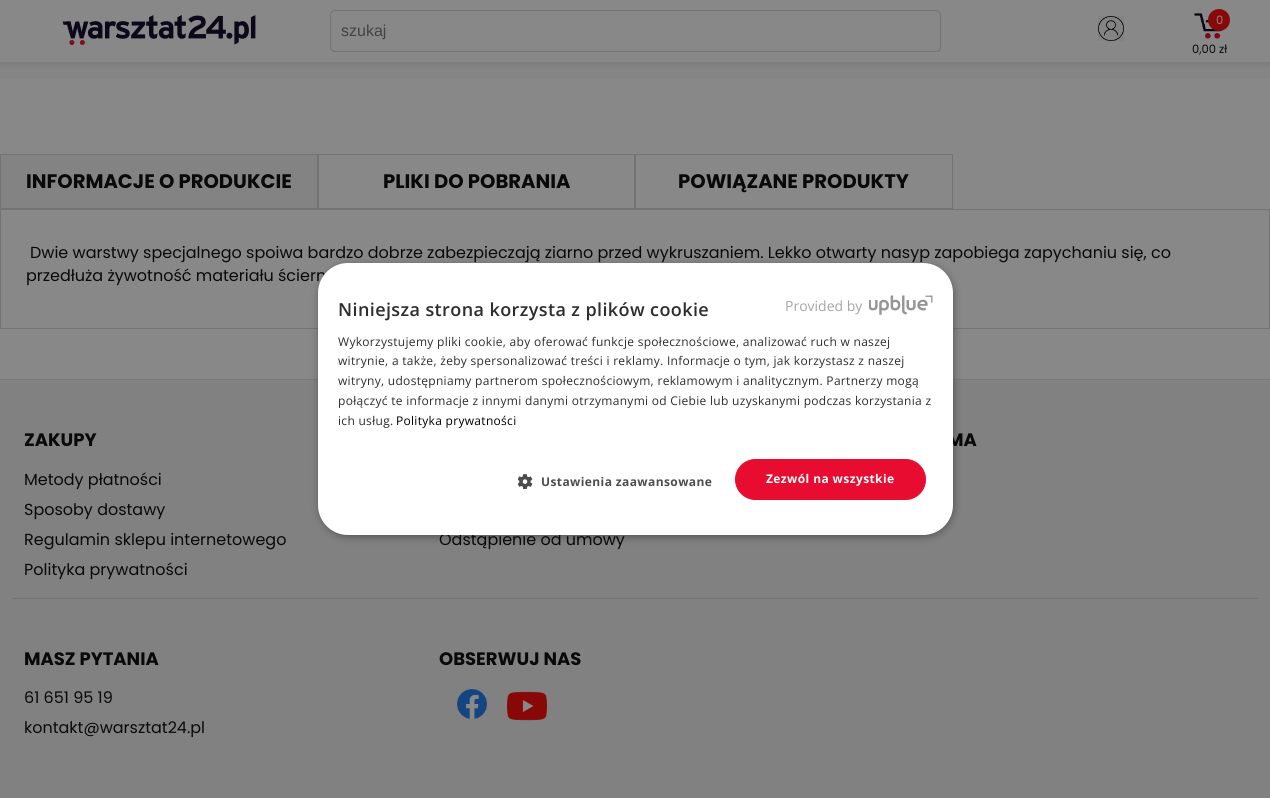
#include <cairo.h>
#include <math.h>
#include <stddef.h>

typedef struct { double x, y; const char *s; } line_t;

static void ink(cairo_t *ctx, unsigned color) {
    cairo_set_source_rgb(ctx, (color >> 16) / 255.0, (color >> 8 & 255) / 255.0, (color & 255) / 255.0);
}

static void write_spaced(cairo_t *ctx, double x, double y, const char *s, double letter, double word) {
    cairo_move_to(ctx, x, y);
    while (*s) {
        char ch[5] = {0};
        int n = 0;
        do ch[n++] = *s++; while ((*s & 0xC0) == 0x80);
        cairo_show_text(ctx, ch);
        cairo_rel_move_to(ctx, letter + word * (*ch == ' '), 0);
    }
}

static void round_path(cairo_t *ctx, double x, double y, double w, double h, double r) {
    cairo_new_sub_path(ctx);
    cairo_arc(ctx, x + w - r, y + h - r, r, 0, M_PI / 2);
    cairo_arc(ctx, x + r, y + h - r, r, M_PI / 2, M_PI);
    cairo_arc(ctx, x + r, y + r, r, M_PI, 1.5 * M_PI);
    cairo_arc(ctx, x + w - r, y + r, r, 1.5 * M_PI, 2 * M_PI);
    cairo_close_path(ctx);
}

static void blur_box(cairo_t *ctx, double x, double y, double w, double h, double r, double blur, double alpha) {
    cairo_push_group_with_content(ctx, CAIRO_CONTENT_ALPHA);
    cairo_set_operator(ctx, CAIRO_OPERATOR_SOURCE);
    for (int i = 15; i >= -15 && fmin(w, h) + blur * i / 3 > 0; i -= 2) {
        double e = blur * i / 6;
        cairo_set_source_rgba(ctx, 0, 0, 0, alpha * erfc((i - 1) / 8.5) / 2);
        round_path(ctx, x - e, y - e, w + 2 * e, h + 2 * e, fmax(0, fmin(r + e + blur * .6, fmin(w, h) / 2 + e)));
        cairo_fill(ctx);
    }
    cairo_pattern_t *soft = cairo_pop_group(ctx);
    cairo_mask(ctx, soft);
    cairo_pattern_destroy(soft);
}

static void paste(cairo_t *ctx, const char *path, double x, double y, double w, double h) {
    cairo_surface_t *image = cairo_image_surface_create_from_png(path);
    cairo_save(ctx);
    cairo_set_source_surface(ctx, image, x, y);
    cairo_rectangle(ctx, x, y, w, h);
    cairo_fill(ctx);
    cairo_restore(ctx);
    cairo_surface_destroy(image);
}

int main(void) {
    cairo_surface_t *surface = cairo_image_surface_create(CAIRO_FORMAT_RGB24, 1270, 798);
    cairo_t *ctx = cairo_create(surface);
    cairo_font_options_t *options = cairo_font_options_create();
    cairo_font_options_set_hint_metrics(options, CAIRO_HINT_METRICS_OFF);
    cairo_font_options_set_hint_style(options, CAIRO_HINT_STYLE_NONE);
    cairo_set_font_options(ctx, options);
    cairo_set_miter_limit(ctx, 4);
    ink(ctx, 0x888888);
    cairo_paint(ctx);
    ink(ctx, 0x858585);
    cairo_rectangle(ctx, 0, 62, 1270, 17);
    cairo_fill(ctx);
    ink(ctx, 0x797979);
    blur_box(ctx, 0, 2, 1270, 62, 0, 3.5, 1);
    ink(ctx, 0x888888);
    cairo_rectangle(ctx, 0, 0, 1270, 62);
    cairo_fill(ctx);
    paste(ctx, "media/1.png", 62, 15, 194, 30);
    round_path(ctx, 330.5, 10.5, 610, 41, 4.5);
    ink(ctx, 0x737373);
    cairo_set_line_width(ctx, 1);
    cairo_stroke(ctx);
    cairo_select_font_face(ctx, "Liberation Sans", CAIRO_FONT_SLANT_NORMAL, CAIRO_FONT_WEIGHT_NORMAL);
    cairo_set_font_size(ctx, 16);
    ink(ctx, 0x434343);
    cairo_move_to(ctx, 341, 36);
    cairo_show_text(ctx, "szukaj");
    paste(ctx, "media/2.png", 1098, 16, 26, 25);
    paste(ctx, "media/3.png", 1194, 13, 30, 26);
    ink(ctx, 0x880909);
    cairo_arc(ctx, 1219, 20, 11, 0, 2 * M_PI);
    cairo_fill(ctx);
    cairo_select_font_face(ctx, "Poppins", CAIRO_FONT_SLANT_NORMAL, CAIRO_FONT_WEIGHT_NORMAL);
    cairo_set_font_size(ctx, 11.5);
    ink(ctx, 0x888888);
    cairo_move_to(ctx, 1216, 24);
    cairo_show_text(ctx, "0");
    ink(ctx, 0x090909);
    cairo_move_to(ctx, 1192, 53);
    cairo_show_text(ctx, "0,00 zł");
    ink(ctx, 0x838383);
    cairo_rectangle(ctx, 0.5, 154.5, 317, 54);
    cairo_fill_preserve(ctx);
    ink(ctx, 0x737373);
    cairo_stroke(ctx);
    cairo_select_font_face(ctx, "Poppins", CAIRO_FONT_SLANT_NORMAL, CAIRO_FONT_WEIGHT_BOLD);
    cairo_set_font_size(ctx, 19.6);
    ink(ctx, 0x090909);
    cairo_move_to(ctx, 26, 188);
    cairo_show_text(ctx, "INFORMACJE O PRODUKCIE");
    cairo_rectangle(ctx, 318.5, 154.5, 316, 54);
    ink(ctx, 0x737373);
    cairo_stroke(ctx);
    ink(ctx, 0x090909);
    cairo_move_to(ctx, 383, 188);
    cairo_show_text(ctx, "PLIKI DO POBRANIA");
    cairo_rectangle(ctx, 635.5, 154.5, 317, 54);
    ink(ctx, 0x737373);
    cairo_stroke(ctx);
    ink(ctx, 0x090909);
    cairo_move_to(ctx, 678, 188);
    cairo_show_text(ctx, "POWIĄZANE PRODUKTY");
    cairo_rectangle(ctx, 0.5, 209.5, 1269, 119);
    ink(ctx, 0x737373);
    cairo_stroke(ctx);
    cairo_select_font_face(ctx, "Poppins", CAIRO_FONT_SLANT_NORMAL, CAIRO_FONT_WEIGHT_NORMAL);
    cairo_set_font_size(ctx, 16);
    ink(ctx, 0x090909);
    cairo_move_to(ctx, 30, 258);
    cairo_show_text(ctx, "Dwie warstwy specjalnego spoiwa bardzo dobrze zabezpieczają ziarno przed wykruszaniem. Lekko otwarty nasyp zapobiega zapychaniu się, co");
    cairo_move_to(ctx, 26, 281);
    cairo_show_text(ctx, "przedłuża żywotność materiału ściern");
    ink(ctx, 0x818181);
    cairo_rectangle(ctx, 0, 380, 1270, 418);
    cairo_fill(ctx);
    ink(ctx, 0x797979);
    cairo_rectangle(ctx, 0, 379, 1270, 1);
    cairo_fill(ctx);
    ink(ctx, 0x000000);
    blur_box(ctx, 319, 265, 635, 272, 30, 4, 0.35);
    cairo_select_font_face(ctx, "Poppins", CAIRO_FONT_SLANT_NORMAL, CAIRO_FONT_WEIGHT_BOLD);
    cairo_set_font_size(ctx, 18);
    ink(ctx, 0x090909);
    cairo_move_to(ctx, 947, 446);
    cairo_show_text(ctx, "MA");
    cairo_select_font_face(ctx, "Poppins", CAIRO_FONT_SLANT_NORMAL, CAIRO_FONT_WEIGHT_NORMAL);
    cairo_set_font_size(ctx, 16);
    cairo_move_to(ctx, 439, 545);
    cairo_show_text(ctx, "Odstąpienie od umowy");
    ink(ctx, 0xFFFFFF);
    round_path(ctx, 318, 263, 635, 272, 30);
    cairo_fill(ctx);
    cairo_select_font_face(ctx, "Open Sans SemiBold", CAIRO_FONT_SLANT_NORMAL, CAIRO_FONT_WEIGHT_NORMAL);
    cairo_set_font_size(ctx, 18);
    ink(ctx, 0x2D2D2D);
    write_spaced(ctx, 338, 316, "Niniejsza strona korzysta z plików cookie", 0.4, 0);
    cairo_select_font_face(ctx, "Open Sans", CAIRO_FONT_SLANT_NORMAL, CAIRO_FONT_WEIGHT_NORMAL);
    cairo_set_font_size(ctx, 14);
    ink(ctx, 0xA5A5A5);
    cairo_move_to(ctx, 785, 311);
    cairo_show_text(ctx, "Provided by");
    paste(ctx, "media/4.png", 869, 295, 64, 20);
    cairo_set_font_size(ctx, 12);
    ink(ctx, 0x2D2D2D);
    {
        static const line_t items[] = {
            {338, 346, "Wykorzystujemy pliki cookie, aby oferować funkcje społecznościowe, analizować ruch w naszej"},
            {338, 365, "witrynie, a także, żeby spersonalizować treści i reklamy. Informacje o tym, jak korzystasz z naszej"},
            {338, 385, "witryny, udostępniamy partnerom społecznościowym, reklamowym i analitycznym. Partnerzy mogą"},
            {338, 405, "połączyć te informacje z innymi danymi otrzymanymi od Ciebie lub uzyskanymi podczas korzystania z"},
            {338, 425, "ich usług."},
        };
        for (size_t i = 0; i < sizeof items / sizeof *items; i++) {
            write_spaced(ctx, items[i].x, items[i].y, items[i].s, 0.3, 0);
        }
    }
    ink(ctx, 0x000000);
    write_spaced(ctx, 396, 425, "Polityka prywatności", 0.3, 0);
    paste(ctx, "media/5.png", 518, 474, 15, 15);
    cairo_select_font_face(ctx, "Open Sans", CAIRO_FONT_SLANT_NORMAL, CAIRO_FONT_WEIGHT_BOLD);
    ink(ctx, 0x4D4D4D);
    write_spaced(ctx, 541, 486, "Ustawienia zaawansowane", 0.4, 0);
    ink(ctx, 0xE80C31);
    round_path(ctx, 735.5, 459.5, 190, 40, 20);
    cairo_fill_preserve(ctx);
    cairo_stroke(ctx);
    ink(ctx, 0xFFFFFF);
    write_spaced(ctx, 766, 483, "Zezwól na wszystkie", 0.4, 0);
    ink(ctx, 0x737373);
    cairo_rectangle(ctx, 12, 598, 1246, 1);
    cairo_fill(ctx);
    cairo_select_font_face(ctx, "Poppins", CAIRO_FONT_SLANT_NORMAL, CAIRO_FONT_WEIGHT_BOLD);
    cairo_set_font_size(ctx, 18);
    ink(ctx, 0x090909);
    cairo_move_to(ctx, 24, 446);
    cairo_show_text(ctx, "ZAKUPY");
    cairo_select_font_face(ctx, "Poppins", CAIRO_FONT_SLANT_NORMAL, CAIRO_FONT_WEIGHT_NORMAL);
    cairo_set_font_size(ctx, 16);
    {
        static const line_t items[] = {
            {24, 485, "Metody płatności"},
            {24, 515, "Sposoby dostawy"},
            {24, 545, "Regulamin sklepu internetowego"},
            {24, 575, "Polityka prywatności"},
        };
        for (size_t i = 0; i < sizeof items / sizeof *items; i++) {
            cairo_move_to(ctx, items[i].x, items[i].y);
            cairo_show_text(ctx, items[i].s);
        }
    }
    cairo_select_font_face(ctx, "Poppins", CAIRO_FONT_SLANT_NORMAL, CAIRO_FONT_WEIGHT_BOLD);
    cairo_set_font_size(ctx, 18);
    cairo_move_to(ctx, 24, 665);
    cairo_show_text(ctx, "MASZ PYTANIA");
    cairo_select_font_face(ctx, "Poppins", CAIRO_FONT_SLANT_NORMAL, CAIRO_FONT_WEIGHT_NORMAL);
    cairo_set_font_size(ctx, 16);
    cairo_move_to(ctx, 24, 703);
    cairo_show_text(ctx, "61 651 95 19");
    cairo_move_to(ctx, 24, 733);
    cairo_show_text(ctx, "kontakt@warsztat24.pl");
    cairo_select_font_face(ctx, "Poppins", CAIRO_FONT_SLANT_NORMAL, CAIRO_FONT_WEIGHT_BOLD);
    cairo_set_font_size(ctx, 18);
    cairo_move_to(ctx, 439, 665);
    cairo_show_text(ctx, "OBSERWUJ NAS");
    paste(ctx, "media/6.png", 457, 689, 30, 30);
    paste(ctx, "media/7.png", 507, 691, 40, 30);
    cairo_surface_write_to_png(surface, "image.png");
    cairo_font_options_destroy(options);
    cairo_destroy(ctx);
    cairo_surface_destroy(surface);
    return 0;
}
